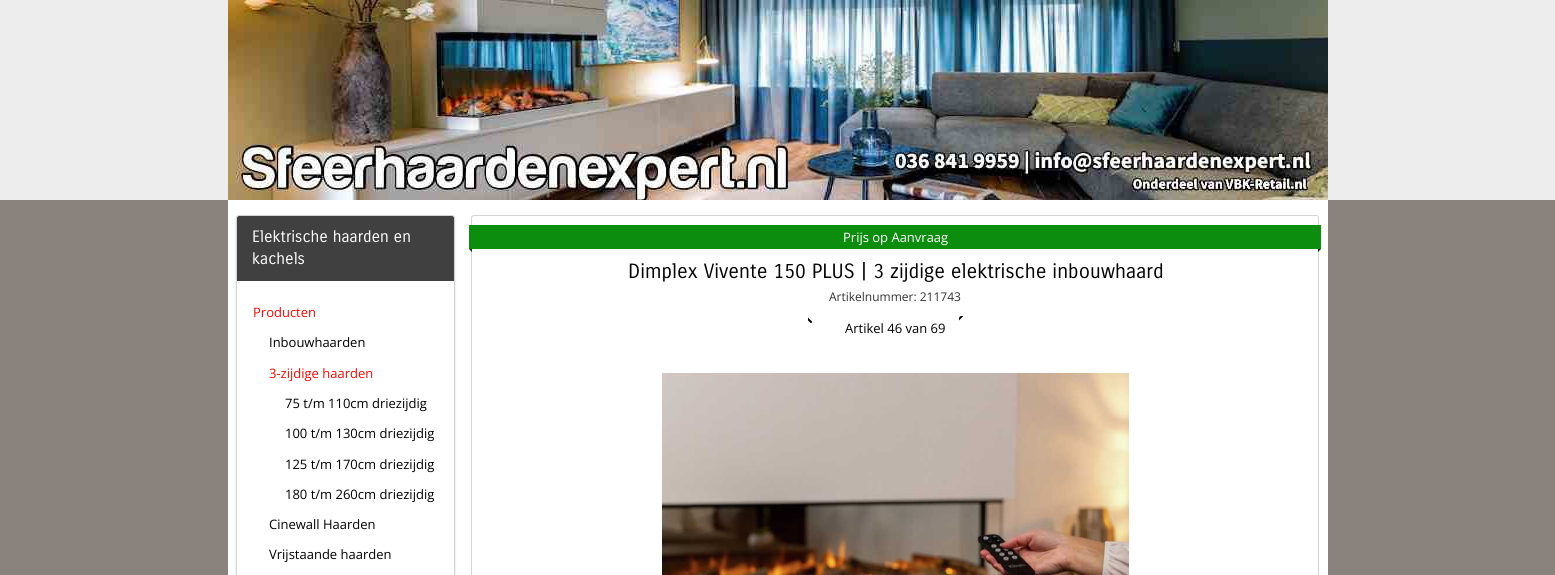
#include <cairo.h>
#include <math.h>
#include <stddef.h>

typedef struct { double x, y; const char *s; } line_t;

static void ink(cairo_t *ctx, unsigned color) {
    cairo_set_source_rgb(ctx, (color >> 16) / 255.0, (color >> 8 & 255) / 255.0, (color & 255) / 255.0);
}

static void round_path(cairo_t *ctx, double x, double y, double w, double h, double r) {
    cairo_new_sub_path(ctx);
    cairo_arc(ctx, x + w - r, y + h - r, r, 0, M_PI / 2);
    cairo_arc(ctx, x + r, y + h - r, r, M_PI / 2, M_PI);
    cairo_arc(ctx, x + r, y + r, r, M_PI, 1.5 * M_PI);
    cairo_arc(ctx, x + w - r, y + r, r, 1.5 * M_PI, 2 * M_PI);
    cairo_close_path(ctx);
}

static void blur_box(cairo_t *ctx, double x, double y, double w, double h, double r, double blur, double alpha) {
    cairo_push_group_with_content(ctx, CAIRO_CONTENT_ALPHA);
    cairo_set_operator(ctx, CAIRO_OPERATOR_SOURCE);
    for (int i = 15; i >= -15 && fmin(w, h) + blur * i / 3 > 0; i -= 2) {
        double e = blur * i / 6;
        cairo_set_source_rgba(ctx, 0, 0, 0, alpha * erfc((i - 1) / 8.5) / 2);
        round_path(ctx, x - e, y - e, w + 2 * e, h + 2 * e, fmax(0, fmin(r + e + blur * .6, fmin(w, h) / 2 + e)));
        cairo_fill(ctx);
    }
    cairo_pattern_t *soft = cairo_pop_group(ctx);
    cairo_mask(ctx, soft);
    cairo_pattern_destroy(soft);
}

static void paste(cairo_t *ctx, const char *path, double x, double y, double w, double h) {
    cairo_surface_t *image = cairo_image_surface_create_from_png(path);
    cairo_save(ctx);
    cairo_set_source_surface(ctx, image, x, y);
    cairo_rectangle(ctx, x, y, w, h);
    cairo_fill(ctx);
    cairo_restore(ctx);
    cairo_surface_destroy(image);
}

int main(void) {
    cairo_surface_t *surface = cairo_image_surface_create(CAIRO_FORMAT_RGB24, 1555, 575);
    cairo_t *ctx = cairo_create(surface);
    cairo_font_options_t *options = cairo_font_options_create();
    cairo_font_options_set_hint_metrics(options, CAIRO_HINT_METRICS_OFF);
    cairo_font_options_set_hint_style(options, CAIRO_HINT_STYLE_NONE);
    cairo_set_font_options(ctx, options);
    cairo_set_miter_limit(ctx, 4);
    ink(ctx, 0x8A827D);
    cairo_paint(ctx);
    ink(ctx, 0xEDEDED);
    cairo_rectangle(ctx, 0, 0, 1555, 200);
    cairo_fill(ctx);
    paste(ctx, "media/1.png", 228, 0, 1100, 200);
    ink(ctx, 0xFFFFFF);
    cairo_rectangle(ctx, 228, 200, 1100, 375);
    cairo_fill(ctx);
    ink(ctx, 0x000000);
    blur_box(ctx, 236, 216, 219, 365, 3, 1, 0.15);
    ink(ctx, 0xFFFFFF);
    round_path(ctx, 236.5, 215.5, 218, 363, 2.5);
    cairo_fill_preserve(ctx);
    ink(ctx, 0xD4D4D4);
    cairo_set_line_width(ctx, 1);
    cairo_stroke(ctx);
    ink(ctx, 0x404040);
    cairo_new_path(ctx);
    cairo_move_to(ctx, 239, 216);
    cairo_line_to(ctx, 452, 216);
    cairo_curve_to(ctx, 453, 216, 454, 217, 454, 218);
    cairo_line_to(ctx, 454, 281);
    cairo_line_to(ctx, 237, 281);
    cairo_line_to(ctx, 237, 218);
    cairo_curve_to(ctx, 237, 217, 238, 216, 239, 216);
    cairo_close_path(ctx);
    cairo_fill(ctx);
    cairo_select_font_face(ctx, "Carrois Gothic", CAIRO_FONT_SLANT_NORMAL, CAIRO_FONT_WEIGHT_NORMAL);
    cairo_set_font_size(ctx, 16);
    ink(ctx, 0xFFFFFF);
    cairo_move_to(ctx, 252, 242);
    cairo_show_text(ctx, "Elektrische haarden en");
    cairo_move_to(ctx, 252, 264);
    cairo_show_text(ctx, "kachels");
    cairo_select_font_face(ctx, "Open Sans", CAIRO_FONT_SLANT_NORMAL, CAIRO_FONT_WEIGHT_NORMAL);
    cairo_set_font_size(ctx, 13);
    ink(ctx, 0xF20A02);
    cairo_move_to(ctx, 253, 317);
    cairo_show_text(ctx, "Producten");
    ink(ctx, 0x000000);
    cairo_move_to(ctx, 269, 347);
    cairo_show_text(ctx, "Inbouwhaarden");
    ink(ctx, 0xF20A02);
    cairo_move_to(ctx, 269, 378);
    cairo_show_text(ctx, "3-zijdige haarden");
    ink(ctx, 0x000000);
    {
        static const line_t items[] = {
            {285, 408, "75 t/m 110cm driezijdig"},
            {285, 438, "100 t/m 130cm driezijdig"},
            {285, 469, "125 t/m 170cm driezijdig"},
            {285, 499, "180 t/m 260cm driezijdig"},
            {269, 529, "Cinewall Haarden"},
            {269, 559, "Vrijstaande haarden"},
        };
        for (size_t i = 0; i < sizeof items / sizeof *items; i++) {
            cairo_move_to(ctx, items[i].x, items[i].y);
            cairo_show_text(ctx, items[i].s);
        }
    }
    round_path(ctx, 471.5, 215.5, 847, 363, 2.5);
    ink(ctx, 0xD4D4D4);
    cairo_stroke(ctx);
    ink(ctx, 0x0D8D0D);
    cairo_rectangle(ctx, 469, 225, 852, 24);
    cairo_fill(ctx);
    ink(ctx, 0xFFFFFF);
    cairo_move_to(ctx, 843, 242);
    cairo_show_text(ctx, "Prijs op Aanvraag");
    ink(ctx, 0x043004);
    cairo_new_path(ctx);
    cairo_move_to(ctx, 469, 249);
    cairo_line_to(ctx, 472, 249);
    cairo_line_to(ctx, 472, 252);
    cairo_close_path(ctx);
    cairo_fill(ctx);
    cairo_new_path(ctx);
    cairo_move_to(ctx, 1318, 249);
    cairo_line_to(ctx, 1321, 249);
    cairo_line_to(ctx, 1318, 252);
    cairo_close_path(ctx);
    cairo_fill(ctx);
    cairo_select_font_face(ctx, "Carrois Gothic", CAIRO_FONT_SLANT_NORMAL, CAIRO_FONT_WEIGHT_NORMAL);
    cairo_set_font_size(ctx, 20);
    ink(ctx, 0x000000);
    cairo_move_to(ctx, 628, 278);
    cairo_show_text(ctx, "Dimplex Vivente 150 PLUS | 3 zijdige elektrische inbouwhaard");
    cairo_select_font_face(ctx, "Open Sans", CAIRO_FONT_SLANT_NORMAL, CAIRO_FONT_WEIGHT_NORMAL);
    cairo_set_font_size(ctx, 12);
    ink(ctx, 0x333333);
    cairo_move_to(ctx, 829, 301);
    cairo_show_text(ctx, "Artikelnummer: 211743");
    paste(ctx, "media/2.png", 808, 317, 4, 6);
    paste(ctx, "media/3.png", 959, 316, 4, 5);
    cairo_set_font_size(ctx, 13);
    ink(ctx, 0x000000);
    cairo_move_to(ctx, 845, 333);
    cairo_show_text(ctx, "Artikel 46 van 69");
    paste(ctx, "media/4.png", 662, 373, 467, 202);
    cairo_surface_write_to_png(surface, "image.png");
    cairo_font_options_destroy(options);
    cairo_destroy(ctx);
    cairo_surface_destroy(surface);
    return 0;
}
